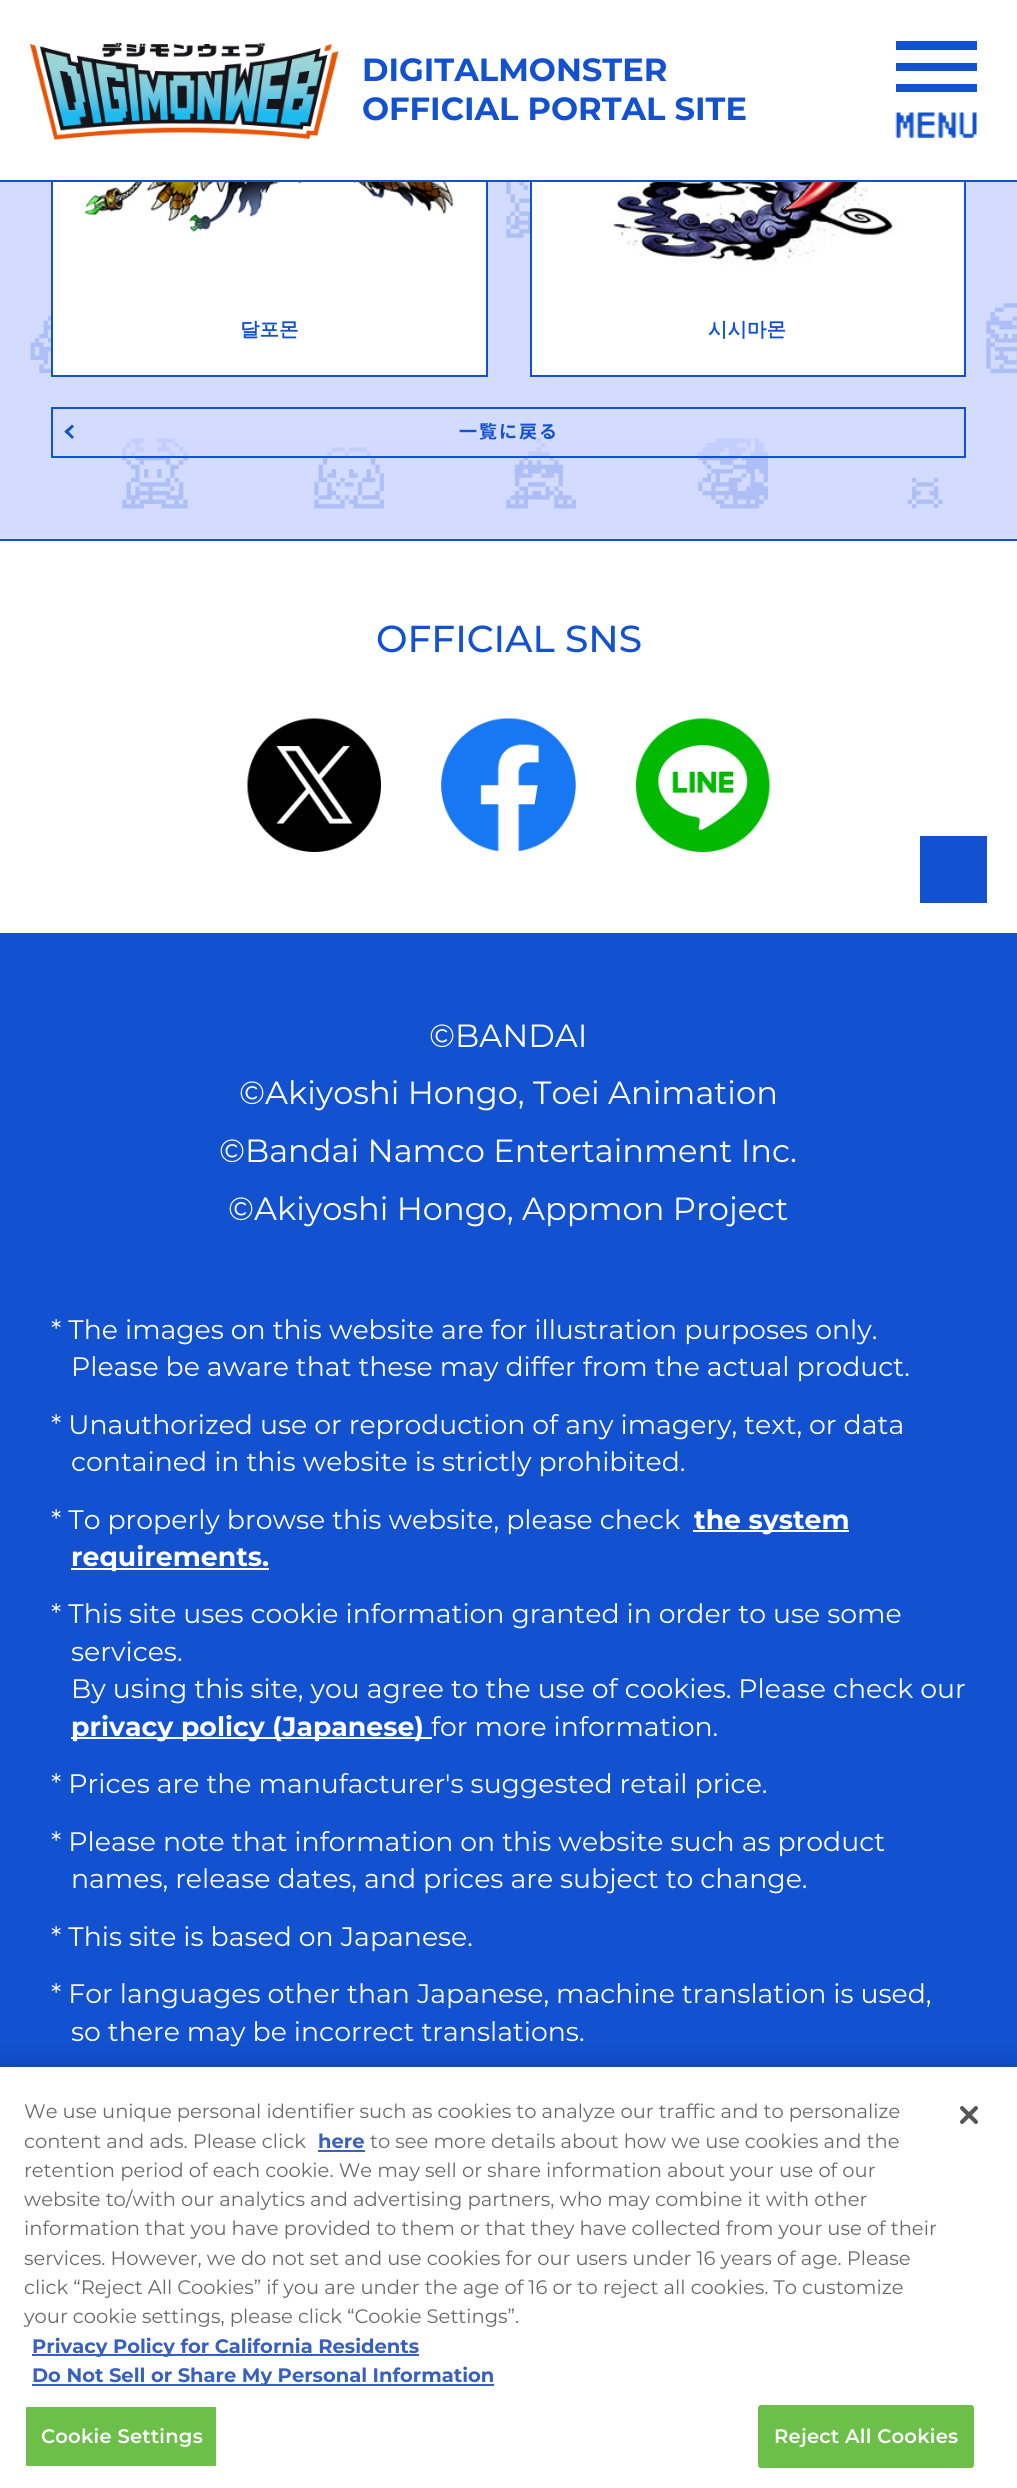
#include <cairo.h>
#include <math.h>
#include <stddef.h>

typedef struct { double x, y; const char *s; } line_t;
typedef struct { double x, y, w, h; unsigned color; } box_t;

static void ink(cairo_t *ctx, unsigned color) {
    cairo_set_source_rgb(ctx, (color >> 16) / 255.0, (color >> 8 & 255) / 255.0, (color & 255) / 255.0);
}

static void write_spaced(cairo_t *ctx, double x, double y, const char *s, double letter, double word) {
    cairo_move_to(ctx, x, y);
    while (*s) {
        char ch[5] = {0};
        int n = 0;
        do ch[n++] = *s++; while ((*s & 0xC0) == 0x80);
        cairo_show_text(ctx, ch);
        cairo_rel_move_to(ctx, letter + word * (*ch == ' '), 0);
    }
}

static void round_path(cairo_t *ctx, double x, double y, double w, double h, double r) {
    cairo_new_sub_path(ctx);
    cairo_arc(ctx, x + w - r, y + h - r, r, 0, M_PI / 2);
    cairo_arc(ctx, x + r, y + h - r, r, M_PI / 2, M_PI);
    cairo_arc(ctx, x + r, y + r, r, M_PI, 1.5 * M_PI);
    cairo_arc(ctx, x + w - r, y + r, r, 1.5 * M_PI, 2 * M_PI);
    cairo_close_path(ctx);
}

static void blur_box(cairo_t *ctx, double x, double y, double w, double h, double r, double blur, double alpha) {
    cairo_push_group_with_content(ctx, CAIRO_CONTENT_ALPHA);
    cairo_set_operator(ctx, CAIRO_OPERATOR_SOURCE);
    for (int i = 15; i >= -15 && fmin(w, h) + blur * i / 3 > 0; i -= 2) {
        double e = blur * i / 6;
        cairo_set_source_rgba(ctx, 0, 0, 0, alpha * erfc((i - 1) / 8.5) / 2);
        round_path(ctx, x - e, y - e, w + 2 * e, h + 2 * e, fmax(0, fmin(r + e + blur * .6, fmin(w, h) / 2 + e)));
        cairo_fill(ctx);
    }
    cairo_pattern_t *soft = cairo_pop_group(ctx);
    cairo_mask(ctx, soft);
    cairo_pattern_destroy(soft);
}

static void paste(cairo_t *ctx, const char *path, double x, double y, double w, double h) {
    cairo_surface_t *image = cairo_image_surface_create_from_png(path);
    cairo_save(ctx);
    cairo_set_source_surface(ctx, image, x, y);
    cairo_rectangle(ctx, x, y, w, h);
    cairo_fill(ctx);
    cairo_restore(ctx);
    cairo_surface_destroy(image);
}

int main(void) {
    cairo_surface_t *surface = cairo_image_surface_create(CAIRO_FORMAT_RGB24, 1017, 2488);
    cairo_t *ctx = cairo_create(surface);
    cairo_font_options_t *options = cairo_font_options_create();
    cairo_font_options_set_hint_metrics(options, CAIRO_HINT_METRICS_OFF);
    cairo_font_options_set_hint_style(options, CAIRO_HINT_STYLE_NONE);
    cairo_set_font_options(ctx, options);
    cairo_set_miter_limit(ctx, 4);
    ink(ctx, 0xD3DBFF);
    cairo_paint(ctx);
    paste(ctx, "media/8.png", 30, 182, 987, 327);
    ink(ctx, 0xFFFFFF);
    cairo_rectangle(ctx, 53, 182, 433, 193);
    cairo_fill(ctx);
    cairo_rectangle(ctx, 52, -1, 435, 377);
    ink(ctx, 0x1251D0);
    cairo_stroke(ctx);
    ink(ctx, 0xFFFFFF);
    cairo_rectangle(ctx, 532, 182, 432, 193);
    cairo_fill(ctx);
    cairo_rectangle(ctx, 531, -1, 434, 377);
    ink(ctx, 0x1251D0);
    cairo_stroke(ctx);
    ink(ctx, 0xFFFFFF);
    cairo_rectangle(ctx, 0, 0, 1017, 180);
    cairo_fill(ctx);
    ink(ctx, 0x1251D0);
    cairo_rectangle(ctx, 0, 180, 1017, 2);
    cairo_fill(ctx);
    paste(ctx, "media/1.png", 30, 43, 309, 97);
    cairo_select_font_face(ctx, "Montserrat", CAIRO_FONT_SLANT_NORMAL, CAIRO_FONT_WEIGHT_BOLD);
    cairo_set_font_size(ctx, 32.1);
    cairo_move_to(ctx, 362, 81);
    cairo_show_text(ctx, "DIGITALMONSTER");
    cairo_move_to(ctx, 362, 120);
    cairo_show_text(ctx, "OFFICIAL PORTAL SITE");
    {
        static const box_t items[] = {
            {896, 41, 81, 9, 0x1251D0},
            {896, 63, 81, 8, 0x1251D0},
            {896, 84, 81, 8, 0x1251D0},
        };
        for (size_t i = 0; i < sizeof items / sizeof *items; i++) {
            ink(ctx, items[i].color);
            cairo_rectangle(ctx, items[i].x, items[i].y, items[i].w, items[i].h);
            cairo_fill(ctx);
        }
    }
    paste(ctx, "media/2.png", 895, 112, 82, 26);
    paste(ctx, "media/3.png", 84, 182, 370, 50);
    cairo_select_font_face(ctx, "WenQuanYi Zen Hei", CAIRO_FONT_SLANT_NORMAL, CAIRO_FONT_WEIGHT_BOLD);
    cairo_set_font_size(ctx, 19.5);
    cairo_move_to(ctx, 240, 336);
    cairo_show_text(ctx, "달포몬");
    paste(ctx, "media/4.png", 561, 182, 373, 83);
    cairo_move_to(ctx, 708, 336);
    cairo_show_text(ctx, "시시마몬");
    cairo_set_source_rgba(ctx, 0.824, 0.855, 1, 0.6);
    cairo_rectangle(ctx, 122, 438, 646, 18);
    cairo_fill(ctx);
    cairo_rectangle(ctx, 52, 408, 913, 49);
    ink(ctx, 0x1251D0);
    cairo_stroke(ctx);
    cairo_new_path(ctx);
    cairo_move_to(ctx, 66.5, 429.5);
    cairo_line_to(ctx, 74, 437);
    cairo_line_to(ctx, 72, 439);
    cairo_line_to(ctx, 64.5, 431.5);
    cairo_close_path(ctx);
    cairo_fill(ctx);
    cairo_new_path(ctx);
    cairo_move_to(ctx, 72, 424.5);
    cairo_line_to(ctx, 74, 426.5);
    cairo_line_to(ctx, 66.5, 434);
    cairo_line_to(ctx, 64.5, 431.5);
    cairo_close_path(ctx);
    cairo_fill(ctx);
    cairo_select_font_face(ctx, "Noto Sans JP", CAIRO_FONT_SLANT_NORMAL, CAIRO_FONT_WEIGHT_BOLD);
    cairo_set_font_size(ctx, 18);
    write_spaced(ctx, 459, 438, "一覧に戻る", 2, 0);
    ink(ctx, 0xFFFFFF);
    cairo_rectangle(ctx, 0, 541, 1017, 392);
    cairo_fill(ctx);
    ink(ctx, 0x1251D0);
    cairo_rectangle(ctx, 0, 539, 1017, 2);
    cairo_fill(ctx);
    cairo_select_font_face(ctx, "Montserrat Medium", CAIRO_FONT_SLANT_NORMAL, CAIRO_FONT_WEIGHT_NORMAL);
    cairo_set_font_size(ctx, 37.5);
    cairo_move_to(ctx, 376, 652);
    cairo_show_text(ctx, "OFFICIAL SNS");
    paste(ctx, "media/5.png", 247, 718, 134, 134);
    paste(ctx, "media/6.png", 441, 718, 135, 134);
    paste(ctx, "media/7.png", 636, 718, 134, 134);
    cairo_rectangle(ctx, 920, 836, 67, 67);
    cairo_fill(ctx);
    cairo_rectangle(ctx, 0, 933, 1017, 1134);
    cairo_fill(ctx);
    cairo_select_font_face(ctx, "Montserrat", CAIRO_FONT_SLANT_NORMAL, CAIRO_FONT_WEIGHT_NORMAL);
    cairo_set_font_size(ctx, 32.1);
    ink(ctx, 0xFFFFFF);
    {
        static const line_t items[] = {
            {429, 1047, "©BANDAI"},
            {239, 1104, "©Akiyoshi Hongo, Toei Animation"},
            {219, 1162, "©Bandai Namco Entertainment Inc."},
            {228, 1220, "©Akiyoshi Hongo, Appmon Project"},
        };
        for (size_t i = 0; i < sizeof items / sizeof *items; i++) {
            cairo_move_to(ctx, items[i].x, items[i].y);
            cairo_show_text(ctx, items[i].s);
        }
    }
    cairo_set_font_size(ctx, 26.75);
    {
        static const line_t items[] = {
            {51, 1339, "* The images on this website are for illustration purposes only."},
            {71, 1376, "Please be aware that these may differ from the actual product."},
            {51, 1434, "* Unauthorized use or reproduction of any imagery, text, or data"},
            {71, 1471, "contained in this website is strictly prohibited."},
            {51, 1529, "* To properly browse this website, please check"},
        };
        for (size_t i = 0; i < sizeof items / sizeof *items; i++) {
            cairo_move_to(ctx, items[i].x, items[i].y);
            cairo_show_text(ctx, items[i].s);
        }
    }
    cairo_rectangle(ctx, 693, 1530, 156, 2);
    cairo_fill(ctx);
    cairo_select_font_face(ctx, "Montserrat", CAIRO_FONT_SLANT_NORMAL, CAIRO_FONT_WEIGHT_BOLD);
    cairo_move_to(ctx, 694, 1529);
    cairo_show_text(ctx, "the system");
    cairo_rectangle(ctx, 71, 1568, 198, 2);
    cairo_fill(ctx);
    cairo_move_to(ctx, 71, 1566);
    cairo_show_text(ctx, "requirements.");
    cairo_select_font_face(ctx, "Montserrat", CAIRO_FONT_SLANT_NORMAL, CAIRO_FONT_WEIGHT_NORMAL);
    {
        static const line_t items[] = {
            {51, 1623, "* This site uses cookie information granted in order to use some"},
            {71, 1661, "services."},
            {71, 1698, "By using this site, you agree to the use of cookies. Please check our"},
        };
        for (size_t i = 0; i < sizeof items / sizeof *items; i++) {
            cairo_move_to(ctx, items[i].x, items[i].y);
            cairo_show_text(ctx, items[i].s);
        }
    }
    cairo_rectangle(ctx, 71, 1737, 361, 2);
    cairo_fill(ctx);
    cairo_select_font_face(ctx, "Montserrat", CAIRO_FONT_SLANT_NORMAL, CAIRO_FONT_WEIGHT_BOLD);
    cairo_move_to(ctx, 71, 1736);
    cairo_show_text(ctx, "privacy policy (Japanese)");
    cairo_select_font_face(ctx, "Montserrat", CAIRO_FONT_SLANT_NORMAL, CAIRO_FONT_WEIGHT_NORMAL);
    {
        static const line_t items[] = {
            {431, 1736, "for more information."},
            {51, 1793, "* Prices are the manufacturer's suggested retail price."},
            {51, 1851, "* Please note that information on this website such as product"},
            {71, 1888, "names, release dates, and prices are subject to change."},
            {51, 1946, "* This site is based on Japanese."},
            {51, 2003, "* For languages other than Japanese, machine translation is used,"},
            {71, 2041, "so there may be incorrect translations."},
        };
        for (size_t i = 0; i < sizeof items / sizeof *items; i++) {
            cairo_move_to(ctx, items[i].x, items[i].y);
            cairo_show_text(ctx, items[i].s);
        }
    }
    ink(ctx, 0x000000);
    blur_box(ctx, 0, 2067, 1017, 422, 0, 13.5, 0.2);
    ink(ctx, 0xFFFFFF);
    cairo_rectangle(ctx, 0, 2067, 1017, 421);
    cairo_fill(ctx);
    cairo_set_font_size(ctx, 19.5);
    ink(ctx, 0x696969);
    cairo_move_to(ctx, 24, 2118);
    cairo_show_text(ctx, "We use unique personal identifier such as cookies to analyze our traffic and to personalize");
    cairo_move_to(ctx, 24, 2148);
    cairo_show_text(ctx, "content and ads. Please click");
    cairo_select_font_face(ctx, "Montserrat", CAIRO_FONT_SLANT_NORMAL, CAIRO_FONT_WEIGHT_BOLD);
    ink(ctx, 0x3860BE);
    cairo_move_to(ctx, 318, 2148);
    cairo_show_text(ctx, "here");
    cairo_rectangle(ctx, 318, 2150, 47, 2);
    cairo_fill(ctx);
    cairo_select_font_face(ctx, "Montserrat", CAIRO_FONT_SLANT_NORMAL, CAIRO_FONT_WEIGHT_NORMAL);
    ink(ctx, 0x696969);
    {
        static const line_t items[] = {
            {370, 2148, "to see more details about how we use cookies and the"},
            {24, 2177, "retention period of each cookie. We may sell or share information about your use of our"},
            {24, 2206, "website to/with our analytics and advertising partners, who may combine it with other"},
            {24, 2235, "information that you have provided to them or that they have collected from your use of their"},
            {24, 2265, "services. However, we do not set and use cookies for our users under 16 years of age. Please"},
            {24, 2294, "click “Reject All Cookies” if you are under the age of 16 or to reject all cookies. To customize"},
            {24, 2323, "your cookie settings, please click “Cookie Settings”."},
        };
        for (size_t i = 0; i < sizeof items / sizeof *items; i++) {
            cairo_move_to(ctx, items[i].x, items[i].y);
            cairo_show_text(ctx, items[i].s);
        }
    }
    ink(ctx, 0x3860BE);
    cairo_rectangle(ctx, 32, 2354, 387, 2);
    cairo_fill(ctx);
    cairo_select_font_face(ctx, "Montserrat", CAIRO_FONT_SLANT_NORMAL, CAIRO_FONT_WEIGHT_BOLD);
    cairo_move_to(ctx, 32, 2353);
    cairo_show_text(ctx, "Privacy Policy for California Residents");
    cairo_rectangle(ctx, 32, 2384, 462, 2);
    cairo_fill(ctx);
    cairo_move_to(ctx, 32, 2382);
    cairo_show_text(ctx, "Do Not Sell or Share My Personal Information");
    ink(ctx, 0x6CC04A);
    round_path(ctx, 25, 2406, 192, 61, 2);
    cairo_fill_preserve(ctx);
    ink(ctx, 0xFFFFFF);
    cairo_stroke(ctx);
    cairo_select_font_face(ctx, "Montserrat SemiBold", CAIRO_FONT_SLANT_NORMAL, CAIRO_FONT_WEIGHT_NORMAL);
    write_spaced(ctx, 41, 2443, "Cookie Settings", 0.25, 0);
    ink(ctx, 0x6CC04A);
    round_path(ctx, 759, 2406, 214, 61, 2);
    cairo_fill_preserve(ctx);
    cairo_stroke(ctx);
    ink(ctx, 0xFFFFFF);
    write_spaced(ctx, 774, 2443, "Reject All Cookies", 0.25, 0);
    paste(ctx, "media/9.png", 960, 2106, 18, 18);
    cairo_surface_write_to_png(surface, "image.png");
    cairo_font_options_destroy(options);
    cairo_destroy(ctx);
    cairo_surface_destroy(surface);
    return 0;
}
